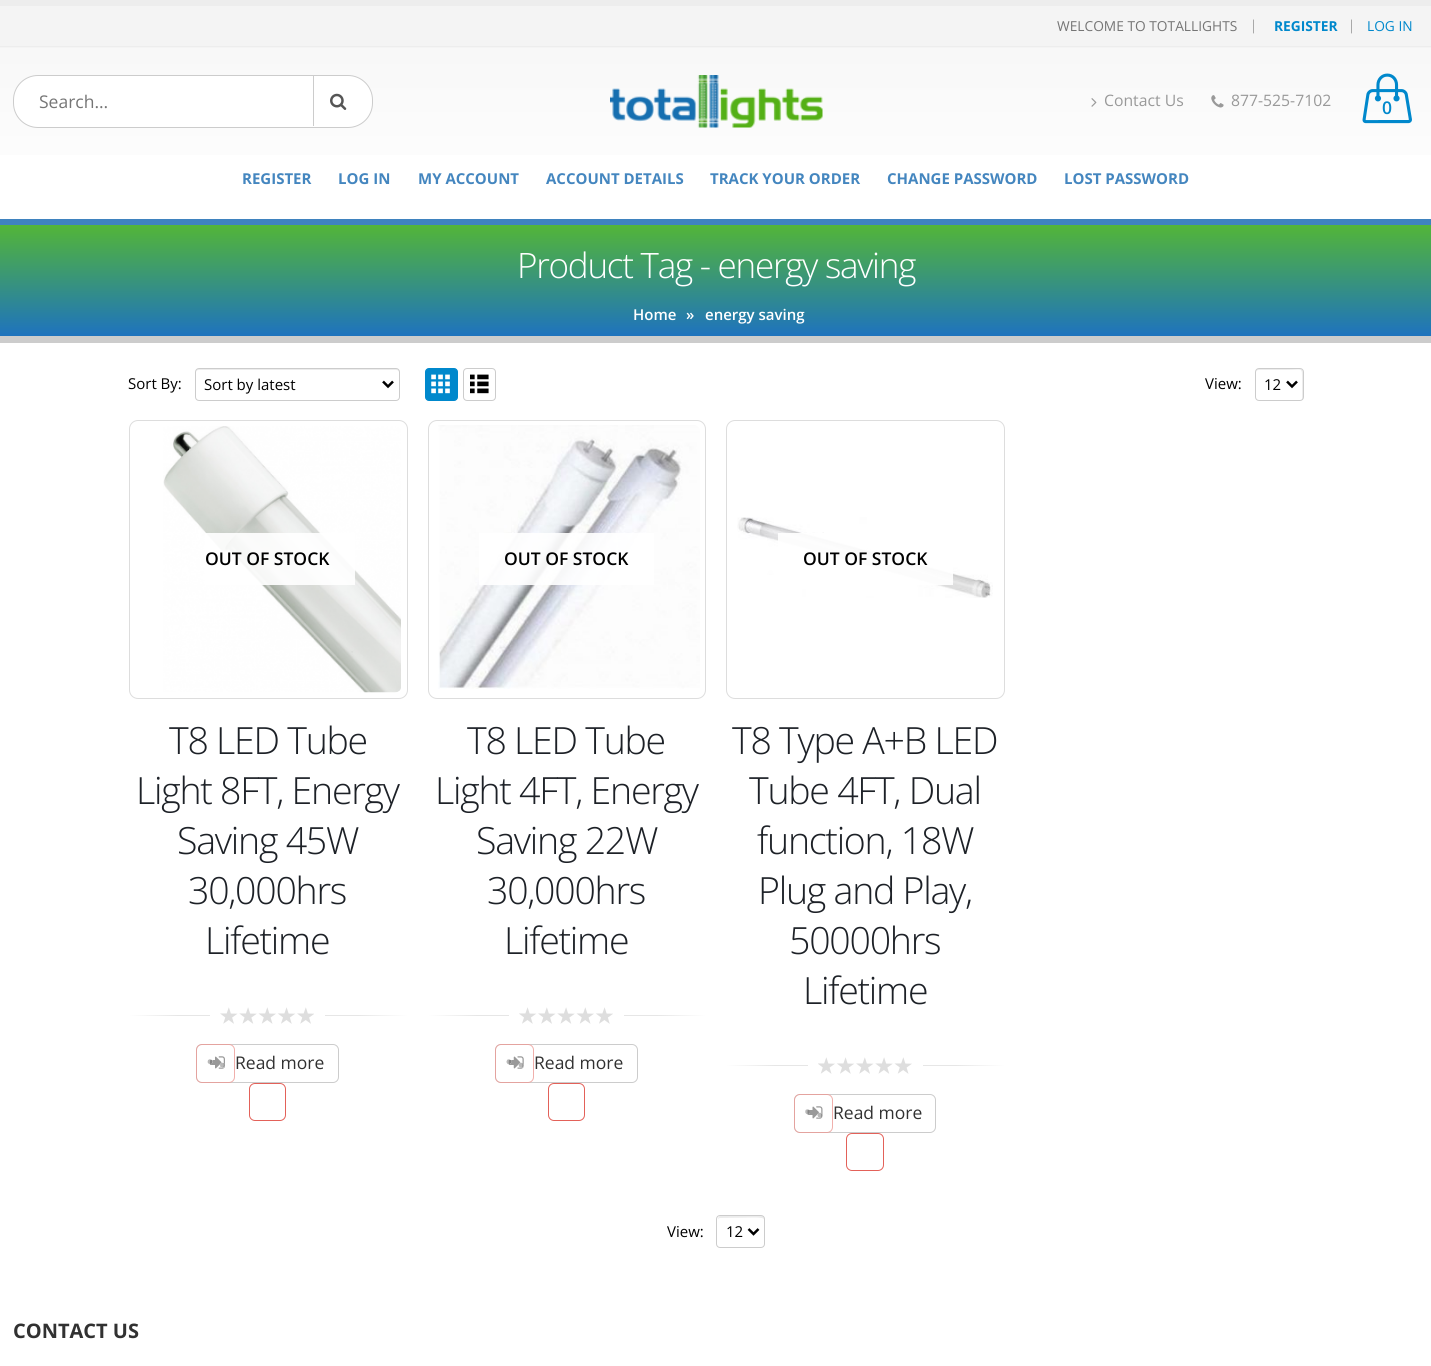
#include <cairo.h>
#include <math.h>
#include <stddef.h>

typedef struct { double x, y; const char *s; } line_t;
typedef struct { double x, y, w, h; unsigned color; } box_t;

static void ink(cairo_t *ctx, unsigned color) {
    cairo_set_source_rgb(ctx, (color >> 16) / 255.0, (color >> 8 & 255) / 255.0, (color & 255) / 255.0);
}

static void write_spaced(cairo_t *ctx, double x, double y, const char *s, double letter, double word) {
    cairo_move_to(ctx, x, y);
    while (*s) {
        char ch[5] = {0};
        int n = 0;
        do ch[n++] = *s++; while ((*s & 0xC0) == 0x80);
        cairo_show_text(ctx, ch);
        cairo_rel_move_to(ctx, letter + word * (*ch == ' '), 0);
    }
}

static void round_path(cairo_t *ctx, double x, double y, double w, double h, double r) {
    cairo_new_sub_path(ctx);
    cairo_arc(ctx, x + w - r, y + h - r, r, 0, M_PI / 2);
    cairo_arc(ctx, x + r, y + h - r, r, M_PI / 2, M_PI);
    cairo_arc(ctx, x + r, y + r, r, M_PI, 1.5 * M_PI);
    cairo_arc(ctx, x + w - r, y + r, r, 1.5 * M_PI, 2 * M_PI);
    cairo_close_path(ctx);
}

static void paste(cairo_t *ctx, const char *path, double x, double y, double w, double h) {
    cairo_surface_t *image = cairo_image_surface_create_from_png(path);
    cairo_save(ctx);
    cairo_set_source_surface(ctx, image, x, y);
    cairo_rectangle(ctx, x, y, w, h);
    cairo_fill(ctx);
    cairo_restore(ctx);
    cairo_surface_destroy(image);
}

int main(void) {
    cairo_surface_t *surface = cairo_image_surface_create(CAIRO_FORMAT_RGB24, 1431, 1366);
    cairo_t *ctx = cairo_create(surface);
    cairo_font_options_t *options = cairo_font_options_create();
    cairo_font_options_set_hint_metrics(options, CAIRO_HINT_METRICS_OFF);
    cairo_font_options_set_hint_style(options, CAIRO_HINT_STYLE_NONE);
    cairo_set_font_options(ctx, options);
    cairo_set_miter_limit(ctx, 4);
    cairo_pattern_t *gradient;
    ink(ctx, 0xFFFFFF);
    cairo_paint(ctx);
    gradient = cairo_pattern_create_linear(716, 6.2, 716, 219);
    cairo_pattern_add_color_stop_rgba(gradient, 0, 0.965, 0.965, 0.965, 1);
    cairo_pattern_add_color_stop_rgba(gradient, 1, 1, 1, 1, 1);
    cairo_set_source(ctx, gradient);
    cairo_pattern_destroy(gradient);
    cairo_rectangle(ctx, 0, 48, 1431, 107);
    cairo_fill(ctx);
    {
        static const box_t items[] = {
            {0, 0, 1431, 6, 0xEDEDED},
            {0, 6, 1431, 42, 0xF4F4F4},
            {0, 46, 1431, 1, 0xEDEDED},
        };
        for (size_t i = 0; i < sizeof items / sizeof *items; i++) {
            ink(ctx, items[i].color);
            cairo_rectangle(ctx, items[i].x, items[i].y, items[i].w, items[i].h);
            cairo_fill(ctx);
        }
    }
    cairo_select_font_face(ctx, "Open Sans", CAIRO_FONT_SLANT_NORMAL, CAIRO_FONT_WEIGHT_NORMAL);
    cairo_set_font_size(ctx, 13.75);
    ink(ctx, 0x757575);
    cairo_move_to(ctx, 1057, 31);
    cairo_show_text(ctx, "WELCOME TO TOTALLIGHTS");
    cairo_select_font_face(ctx, "Open Sans Light", CAIRO_FONT_SLANT_NORMAL, CAIRO_FONT_WEIGHT_NORMAL);
    cairo_move_to(ctx, 1250, 30);
    cairo_show_text(ctx, "|");
    cairo_select_font_face(ctx, "Open Sans", CAIRO_FONT_SLANT_NORMAL, CAIRO_FONT_WEIGHT_BOLD);
    ink(ctx, 0x0088CC);
    cairo_move_to(ctx, 1274, 31);
    cairo_show_text(ctx, "REGISTER");
    cairo_select_font_face(ctx, "Open Sans Light", CAIRO_FONT_SLANT_NORMAL, CAIRO_FONT_WEIGHT_NORMAL);
    ink(ctx, 0x757575);
    cairo_move_to(ctx, 1348, 30);
    cairo_show_text(ctx, "|");
    cairo_select_font_face(ctx, "Open Sans", CAIRO_FONT_SLANT_NORMAL, CAIRO_FONT_WEIGHT_NORMAL);
    ink(ctx, 0x0088CC);
    cairo_move_to(ctx, 1367, 31);
    cairo_show_text(ctx, "LOG IN");
    ink(ctx, 0xFFFFFF);
    round_path(ctx, 13.5, 75.5, 359, 52, 24.5);
    cairo_fill_preserve(ctx);
    ink(ctx, 0xCCCCCC);
    cairo_set_line_width(ctx, 1);
    cairo_stroke(ctx);
    cairo_rectangle(ctx, 313, 76, 1, 50);
    cairo_fill(ctx);
    cairo_set_font_size(ctx, 17.5);
    ink(ctx, 0x757575);
    cairo_move_to(ctx, 39, 108);
    cairo_show_text(ctx, "Search…");
    paste(ctx, "media/1.png", 330, 93, 17, 17);
    paste(ctx, "media/2.png", 610, 75, 213, 53);
    paste(ctx, "media/3.png", 1091, 98, 6, 9);
    cairo_set_font_size(ctx, 15.75);
    ink(ctx, 0x999999);
    cairo_move_to(ctx, 1104, 106);
    cairo_show_text(ctx, "Contact Us");
    paste(ctx, "media/4.png", 1211, 95, 13, 13);
    cairo_move_to(ctx, 1231, 106);
    cairo_show_text(ctx, "877-525-7102");
    paste(ctx, "media/5.png", 1362, 73, 50, 51);
    cairo_select_font_face(ctx, "Open Sans SemiBold", CAIRO_FONT_SLANT_NORMAL, CAIRO_FONT_WEIGHT_NORMAL);
    cairo_set_font_size(ctx, 17.5);
    ink(ctx, 0x0088CC);
    cairo_move_to(ctx, 1382, 114);
    cairo_show_text(ctx, "0");
    cairo_select_font_face(ctx, "Open Sans", CAIRO_FONT_SLANT_NORMAL, CAIRO_FONT_WEIGHT_BOLD);
    cairo_set_font_size(ctx, 15);
    ink(ctx, 0x4486BF);
    {
        static const line_t items[] = {
            {242, 184, "REGISTER"},
            {338, 184, "LOG IN"},
            {418, 184, "MY ACCOUNT"},
            {546, 184, "ACCOUNT DETAILS"},
            {710, 184, "TRACK YOUR ORDER"},
            {887, 184, "CHANGE PASSWORD"},
            {1064, 184, "LOST PASSWORD"},
        };
        for (size_t i = 0; i < sizeof items / sizeof *items; i++) {
            cairo_move_to(ctx, items[i].x, items[i].y);
            cairo_show_text(ctx, items[i].s);
        }
    }
    gradient = cairo_pattern_create_linear(716, 225, 716, 336);
    cairo_pattern_add_color_stop_rgba(gradient, 0, 0.325, 0.71, 0.22, 1);
    cairo_pattern_add_color_stop_rgba(gradient, 1, 0.118, 0.451, 0.745, 1);
    cairo_set_source(ctx, gradient);
    cairo_pattern_destroy(gradient);
    cairo_rectangle(ctx, 0, 225, 1431, 111);
    cairo_fill(ctx);
    ink(ctx, 0x3F83BF);
    cairo_rectangle(ctx, 0, 219, 1431, 6);
    cairo_fill(ctx);
    ink(ctx, 0xCCCCCC);
    cairo_rectangle(ctx, 0, 336, 1431, 7);
    cairo_fill(ctx);
    cairo_select_font_face(ctx, "Open Sans Light", CAIRO_FONT_SLANT_NORMAL, CAIRO_FONT_WEIGHT_NORMAL);
    cairo_set_font_size(ctx, 35);
    ink(ctx, 0xFFFFFF);
    write_spaced(ctx, 517, 278, "Product Tag - energy saving", -1.25, 0);
    cairo_select_font_face(ctx, "Open Sans SemiBold", CAIRO_FONT_SLANT_NORMAL, CAIRO_FONT_WEIGHT_NORMAL);
    cairo_set_font_size(ctx, 15);
    {
        static const line_t items[] = {
            {633, 320, "Home"},
            {686, 320, "»"},
            {705, 320, "energy saving"},
        };
        for (size_t i = 0; i < sizeof items / sizeof *items; i++) {
            cairo_move_to(ctx, items[i].x, items[i].y);
            cairo_show_text(ctx, items[i].s);
        }
    }
    cairo_select_font_face(ctx, "Open Sans", CAIRO_FONT_SLANT_NORMAL, CAIRO_FONT_WEIGHT_NORMAL);
    ink(ctx, 0x000000);
    cairo_move_to(ctx, 128, 389);
    cairo_show_text(ctx, "Sort By:");
    ink(ctx, 0xECECEC);
    cairo_new_path(ctx);
    cairo_move_to(ctx, 199, 370);
    cairo_line_to(ctx, 396, 370);
    cairo_curve_to(ctx, 398, 370, 399, 371, 399, 372);
    cairo_line_to(ctx, 399, 370);
    cairo_line_to(ctx, 397, 369);
    cairo_line_to(ctx, 198, 369);
    cairo_curve_to(ctx, 197, 369, 196, 370, 196, 372);
    cairo_curve_to(ctx, 196, 371, 197, 370, 199, 370);
    cairo_close_path(ctx);
    cairo_fill(ctx);
    round_path(ctx, 195.5, 368.5, 204, 32, 3.5);
    ink(ctx, 0xCCCCCC);
    cairo_stroke(ctx);
    cairo_new_path(ctx);
    cairo_move_to(ctx, 383, 381.5);
    cairo_line_to(ctx, 388, 386.5);
    cairo_line_to(ctx, 393, 381.5);
    ink(ctx, 0x000000);
    cairo_set_line_width(ctx, 2.5);
    cairo_stroke(ctx);
    cairo_move_to(ctx, 204, 390);
    cairo_show_text(ctx, "Sort by latest");
    ink(ctx, 0x0088CC);
    round_path(ctx, 425.5, 368.5, 32, 32, 3.5);
    cairo_fill_preserve(ctx);
    cairo_set_line_width(ctx, 1);
    cairo_stroke(ctx);
    paste(ctx, "media/6.png", 431, 374, 19, 20);
    round_path(ctx, 463.5, 368.5, 32, 32, 3.5);
    ink(ctx, 0xCCCCCC);
    cairo_stroke(ctx);
    paste(ctx, "media/7.png", 470, 374, 19, 20);
    ink(ctx, 0x000000);
    cairo_move_to(ctx, 1205, 389);
    cairo_show_text(ctx, "View:");
    ink(ctx, 0xECECEC);
    cairo_new_path(ctx);
    cairo_move_to(ctx, 1259, 370);
    cairo_line_to(ctx, 1286, 370);
    cairo_curve_to(ctx, 1303, 370, 1302, 366, 1302, 381);
    cairo_line_to(ctx, 1302, 400);
    cairo_curve_to(ctx, 1303, 399, 1303, 398, 1303, 398);
    cairo_line_to(ctx, 1303, 372);
    cairo_curve_to(ctx, 1303, 370, 1302, 369, 1300, 369);
    cairo_line_to(ctx, 1258, 369);
    cairo_curve_to(ctx, 1257, 369, 1256, 370, 1256, 372);
    cairo_curve_to(ctx, 1256, 371, 1257, 370, 1259, 370);
    cairo_close_path(ctx);
    cairo_fill(ctx);
    round_path(ctx, 1255.5, 368.5, 48, 32, 3.5);
    ink(ctx, 0xCCCCCC);
    cairo_stroke(ctx);
    cairo_new_path(ctx);
    cairo_move_to(ctx, 1287, 381.5);
    cairo_line_to(ctx, 1292, 386.5);
    cairo_line_to(ctx, 1297, 381.5);
    ink(ctx, 0x000000);
    cairo_set_line_width(ctx, 2.5);
    cairo_stroke(ctx);
    cairo_move_to(ctx, 1264, 390);
    cairo_show_text(ctx, "12");
    round_path(ctx, 129.5, 420.5, 278, 278, 8.5);
    ink(ctx, 0xDDDDDD);
    cairo_set_line_width(ctx, 1);
    cairo_stroke(ctx);
    paste(ctx, "media/8.png", 163, 426, 238, 267);
    cairo_set_source_rgba(ctx, 1, 1, 1, 0.9);
    cairo_rectangle(ctx, 205, 533, 150, 52);
    cairo_fill(ctx);
    cairo_select_font_face(ctx, "Open Sans SemiBold", CAIRO_FONT_SLANT_NORMAL, CAIRO_FONT_WEIGHT_NORMAL);
    cairo_set_font_size(ctx, 17.5);
    ink(ctx, 0x000000);
    cairo_move_to(ctx, 205, 565);
    cairo_show_text(ctx, "OUT OF STOCK");
    cairo_select_font_face(ctx, "Open Sans Light", CAIRO_FONT_SLANT_NORMAL, CAIRO_FONT_WEIGHT_NORMAL);
    cairo_set_font_size(ctx, 37.5);
    ink(ctx, 0x1D2127);
    {
        static const line_t items[] = {
            {169, 754, "T8 LED Tube"},
            {136, 804, "Light 8FT, Energy"},
            {177, 854, "Saving 45W"},
            {188, 904, "30,000hrs"},
            {205, 954, "Lifetime"},
        };
        for (size_t i = 0; i < sizeof items / sizeof *items; i++) {
            write_spaced(ctx, items[i].x, items[i].y, items[i].s, -1.25, 0);
        }
    }
    gradient = cairo_pattern_create_linear(210, 1016, 129, 1016);
    cairo_pattern_add_color_stop_rgba(gradient, 0, 0.902, 0.902, 0.902, 1);
    cairo_pattern_add_color_stop_rgba(gradient, 0.4, 0.902, 0.902, 0.902, 1);
    cairo_pattern_add_color_stop_rgba(gradient, 1, 1, 1, 1, 1);
    cairo_set_source(ctx, gradient);
    cairo_pattern_destroy(gradient);
    cairo_rectangle(ctx, 129, 1015, 81, 1);
    cairo_fill(ctx);
    paste(ctx, "media/9.png", 220, 1007, 94, 17);
    gradient = cairo_pattern_create_linear(325, 1016, 408, 1016);
    cairo_pattern_add_color_stop_rgba(gradient, 0, 0.902, 0.902, 0.902, 1);
    cairo_pattern_add_color_stop_rgba(gradient, 0.4, 0.902, 0.902, 0.902, 1);
    cairo_pattern_add_color_stop_rgba(gradient, 1, 1, 1, 1, 1);
    cairo_set_source(ctx, gradient);
    cairo_pattern_destroy(gradient);
    cairo_rectangle(ctx, 325, 1015, 83, 1);
    cairo_fill(ctx);
    round_path(ctx, 196.5, 1044.5, 142, 38, 5.5);
    ink(ctx, 0xCCCCCC);
    cairo_stroke(ctx);
    paste(ctx, "media/11.png", 210, 1056, 15, 13);
    cairo_set_source_rgba(ctx, 1, 1, 1, 0.5);
    round_path(ctx, 196, 1044, 39, 39, 6);
    cairo_fill(ctx);
    paste(ctx, "media/10.png", 207, 1059, 18, 9);
    round_path(ctx, 196.5, 1044.5, 38, 38, 5.5);
    cairo_set_source_rgba(ctx, 0.89, 0.38, 0.349, 0.5);
    cairo_stroke(ctx);
    round_path(ctx, 249.5, 1083.5, 36, 37, 5.5);
    ink(ctx, 0xE36159);
    cairo_stroke(ctx);
    cairo_select_font_face(ctx, "Open Sans", CAIRO_FONT_SLANT_NORMAL, CAIRO_FONT_WEIGHT_NORMAL);
    cairo_set_font_size(ctx, 17.5);
    ink(ctx, 0x313131);
    cairo_move_to(ctx, 235, 1069);
    cairo_show_text(ctx, "Read more");
    round_path(ctx, 428.5, 420.5, 277, 278, 8.5);
    ink(ctx, 0xDDDDDD);
    cairo_stroke(ctx);
    paste(ctx, "media/12.png", 438, 425, 262, 264);
    cairo_set_source_rgba(ctx, 1, 1, 1, 0.9);
    cairo_rectangle(ctx, 479, 533, 175, 52);
    cairo_fill(ctx);
    cairo_select_font_face(ctx, "Open Sans SemiBold", CAIRO_FONT_SLANT_NORMAL, CAIRO_FONT_WEIGHT_NORMAL);
    ink(ctx, 0x000000);
    cairo_move_to(ctx, 504, 565);
    cairo_show_text(ctx, "OUT OF STOCK");
    cairo_select_font_face(ctx, "Open Sans Light", CAIRO_FONT_SLANT_NORMAL, CAIRO_FONT_WEIGHT_NORMAL);
    cairo_set_font_size(ctx, 37.5);
    ink(ctx, 0x1D2127);
    {
        static const line_t items[] = {
            {467, 754, "T8 LED Tube"},
            {435, 804, "Light 4FT, Energy"},
            {476, 854, "Saving 22W"},
            {487, 904, "30,000hrs"},
            {504, 954, "Lifetime"},
        };
        for (size_t i = 0; i < sizeof items / sizeof *items; i++) {
            write_spaced(ctx, items[i].x, items[i].y, items[i].s, -1.25, 0);
        }
    }
    gradient = cairo_pattern_create_linear(509, 1016, 428, 1016);
    cairo_pattern_add_color_stop_rgba(gradient, 0, 0.902, 0.902, 0.902, 1);
    cairo_pattern_add_color_stop_rgba(gradient, 0.4, 0.902, 0.902, 0.902, 1);
    cairo_pattern_add_color_stop_rgba(gradient, 1, 1, 1, 1, 1);
    cairo_set_source(ctx, gradient);
    cairo_pattern_destroy(gradient);
    cairo_rectangle(ctx, 428, 1015, 81, 1);
    cairo_fill(ctx);
    paste(ctx, "media/13.png", 519, 1007, 94, 17);
    gradient = cairo_pattern_create_linear(624, 1016, 706, 1016);
    cairo_pattern_add_color_stop_rgba(gradient, 0, 0.902, 0.902, 0.902, 1);
    cairo_pattern_add_color_stop_rgba(gradient, 0.4, 0.902, 0.902, 0.902, 1);
    cairo_pattern_add_color_stop_rgba(gradient, 1, 1, 1, 1, 1);
    cairo_set_source(ctx, gradient);
    cairo_pattern_destroy(gradient);
    cairo_rectangle(ctx, 624, 1015, 82, 1);
    cairo_fill(ctx);
    round_path(ctx, 495.5, 1044.5, 142, 38, 5.5);
    ink(ctx, 0xCCCCCC);
    cairo_stroke(ctx);
    paste(ctx, "media/15.png", 508, 1056, 16, 13);
    cairo_set_source_rgba(ctx, 1, 1, 1, 0.5);
    round_path(ctx, 495, 1044, 39, 39, 6);
    cairo_fill(ctx);
    paste(ctx, "media/14.png", 506, 1059, 18, 9);
    round_path(ctx, 495.5, 1044.5, 38, 38, 5.5);
    cairo_set_source_rgba(ctx, 0.89, 0.38, 0.349, 0.5);
    cairo_stroke(ctx);
    round_path(ctx, 548.5, 1083.5, 36, 37, 5.5);
    ink(ctx, 0xE36159);
    cairo_stroke(ctx);
    cairo_select_font_face(ctx, "Open Sans", CAIRO_FONT_SLANT_NORMAL, CAIRO_FONT_WEIGHT_NORMAL);
    cairo_set_font_size(ctx, 17.5);
    ink(ctx, 0x313131);
    cairo_move_to(ctx, 534, 1069);
    cairo_show_text(ctx, "Read more");
    round_path(ctx, 726.5, 420.5, 278, 278, 8.5);
    ink(ctx, 0xDDDDDD);
    cairo_stroke(ctx);
    paste(ctx, "media/16.png", 737, 517, 256, 81);
    cairo_set_source_rgba(ctx, 1, 1, 1, 0.9);
    cairo_rectangle(ctx, 778, 533, 175, 52);
    cairo_fill(ctx);
    cairo_select_font_face(ctx, "Open Sans SemiBold", CAIRO_FONT_SLANT_NORMAL, CAIRO_FONT_WEIGHT_NORMAL);
    ink(ctx, 0x000000);
    cairo_move_to(ctx, 803, 565);
    cairo_show_text(ctx, "OUT OF STOCK");
    cairo_select_font_face(ctx, "Open Sans Light", CAIRO_FONT_SLANT_NORMAL, CAIRO_FONT_WEIGHT_NORMAL);
    cairo_set_font_size(ctx, 37.5);
    ink(ctx, 0x1D2127);
    {
        static const line_t items[] = {
            {732, 754, "T8 Type A+B LED"},
            {749, 804, "Tube 4FT, Dual"},
            {757, 854, "function, 18W"},
            {758, 904, "Plug and Play,"},
            {789, 954, "50000hrs"},
            {803, 1004, "Lifetime"},
        };
        for (size_t i = 0; i < sizeof items / sizeof *items; i++) {
            write_spaced(ctx, items[i].x, items[i].y, items[i].s, -1.25, 0);
        }
    }
    gradient = cairo_pattern_create_linear(808, 1066, 726, 1066);
    cairo_pattern_add_color_stop_rgba(gradient, 0, 0.902, 0.902, 0.902, 1);
    cairo_pattern_add_color_stop_rgba(gradient, 0.4, 0.902, 0.902, 0.902, 1);
    cairo_pattern_add_color_stop_rgba(gradient, 1, 1, 1, 1, 1);
    cairo_set_source(ctx, gradient);
    cairo_pattern_destroy(gradient);
    cairo_rectangle(ctx, 726, 1065, 82, 1);
    cairo_fill(ctx);
    paste(ctx, "media/17.png", 818, 1057, 94, 17);
    gradient = cairo_pattern_create_linear(923, 1066, 1005, 1066);
    cairo_pattern_add_color_stop_rgba(gradient, 0, 0.902, 0.902, 0.902, 1);
    cairo_pattern_add_color_stop_rgba(gradient, 0.4, 0.902, 0.902, 0.902, 1);
    cairo_pattern_add_color_stop_rgba(gradient, 1, 1, 1, 1, 1);
    cairo_set_source(ctx, gradient);
    cairo_pattern_destroy(gradient);
    cairo_rectangle(ctx, 923, 1065, 82, 1);
    cairo_fill(ctx);
    round_path(ctx, 794.5, 1094.5, 141, 38, 5.5);
    ink(ctx, 0xCCCCCC);
    cairo_stroke(ctx);
    paste(ctx, "media/19.png", 807, 1106, 16, 13);
    cairo_set_source_rgba(ctx, 1, 1, 1, 0.5);
    round_path(ctx, 794, 1094, 39, 39, 6);
    cairo_fill(ctx);
    paste(ctx, "media/18.png", 805, 1109, 18, 9);
    round_path(ctx, 794.5, 1094.5, 38, 38, 5.5);
    cairo_set_source_rgba(ctx, 0.89, 0.38, 0.349, 0.5);
    cairo_stroke(ctx);
    round_path(ctx, 846.5, 1133.5, 37, 37, 5.5);
    ink(ctx, 0xE36159);
    cairo_stroke(ctx);
    cairo_select_font_face(ctx, "Open Sans", CAIRO_FONT_SLANT_NORMAL, CAIRO_FONT_WEIGHT_NORMAL);
    cairo_set_font_size(ctx, 17.5);
    ink(ctx, 0x313131);
    cairo_move_to(ctx, 833, 1119);
    cairo_show_text(ctx, "Read more");
    cairo_set_font_size(ctx, 15);
    ink(ctx, 0x000000);
    cairo_move_to(ctx, 667, 1237);
    cairo_show_text(ctx, "View:");
    ink(ctx, 0xECECEC);
    cairo_new_path(ctx);
    cairo_move_to(ctx, 720, 1218);
    cairo_curve_to(ctx, 752, 1218, 764, 1216, 764, 1220);
    cairo_curve_to(ctx, 764, 1214, 760, 1216, 755, 1216);
    cairo_line_to(ctx, 727, 1216);
    cairo_curve_to(ctx, 722, 1216, 718, 1214, 718, 1220);
    cairo_curve_to(ctx, 718, 1219, 719, 1218, 720, 1218);
    cairo_close_path(ctx);
    cairo_fill(ctx);
    round_path(ctx, 716.5, 1215.5, 48, 32, 3.5);
    ink(ctx, 0xCCCCCC);
    cairo_stroke(ctx);
    cairo_new_path(ctx);
    cairo_move_to(ctx, 748.5, 1229);
    cairo_line_to(ctx, 753.5, 1234);
    cairo_line_to(ctx, 758.5, 1229);
    ink(ctx, 0x000000);
    cairo_set_line_width(ctx, 2.5);
    cairo_stroke(ctx);
    cairo_move_to(ctx, 726, 1237);
    cairo_show_text(ctx, "12");
    cairo_select_font_face(ctx, "Open Sans", CAIRO_FONT_SLANT_NORMAL, CAIRO_FONT_WEIGHT_BOLD);
    cairo_set_font_size(ctx, 20);
    ink(ctx, 0x313131);
    cairo_move_to(ctx, 13, 1338);
    cairo_show_text(ctx, "CONTACT US");
    cairo_surface_write_to_png(surface, "image.png");
    cairo_font_options_destroy(options);
    cairo_destroy(ctx);
    cairo_surface_destroy(surface);
    return 0;
}
